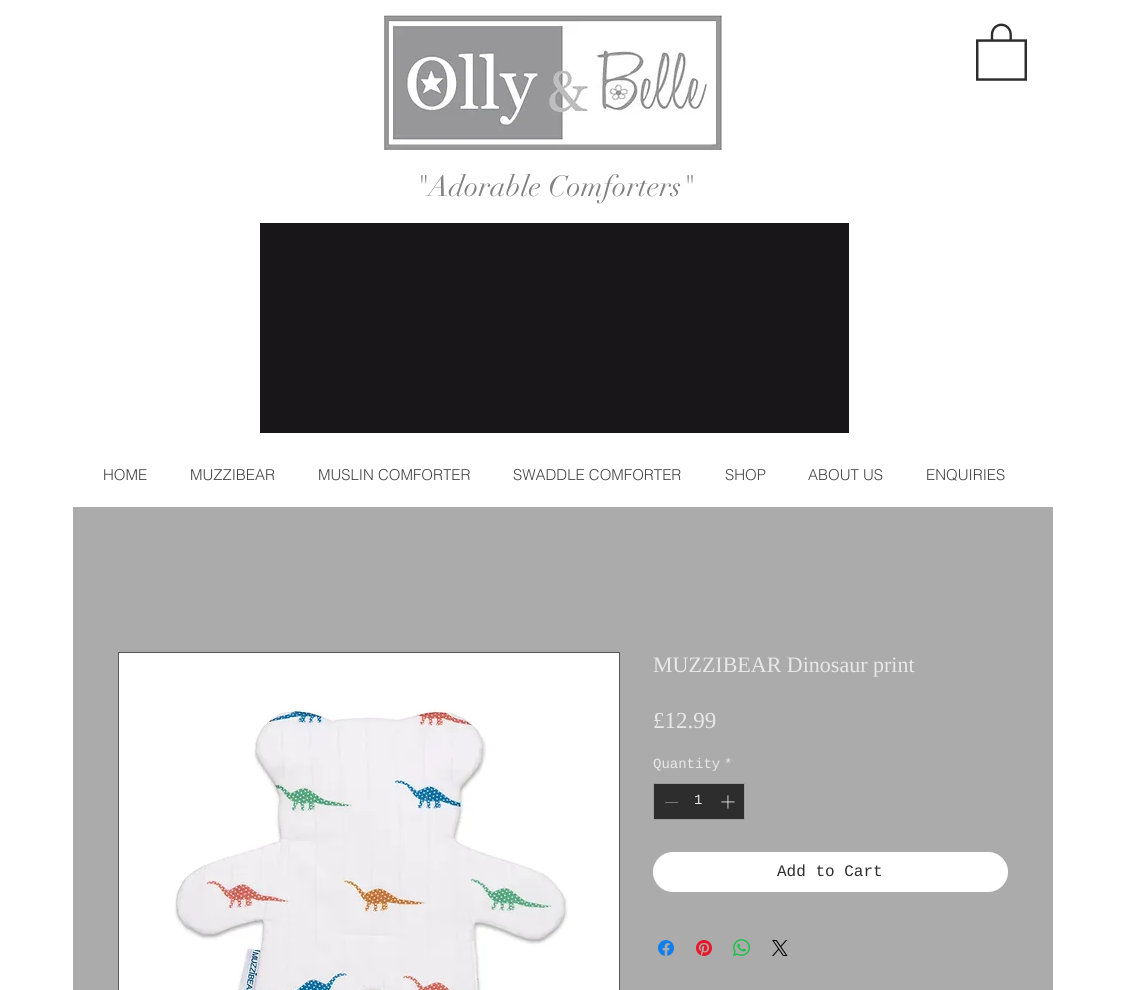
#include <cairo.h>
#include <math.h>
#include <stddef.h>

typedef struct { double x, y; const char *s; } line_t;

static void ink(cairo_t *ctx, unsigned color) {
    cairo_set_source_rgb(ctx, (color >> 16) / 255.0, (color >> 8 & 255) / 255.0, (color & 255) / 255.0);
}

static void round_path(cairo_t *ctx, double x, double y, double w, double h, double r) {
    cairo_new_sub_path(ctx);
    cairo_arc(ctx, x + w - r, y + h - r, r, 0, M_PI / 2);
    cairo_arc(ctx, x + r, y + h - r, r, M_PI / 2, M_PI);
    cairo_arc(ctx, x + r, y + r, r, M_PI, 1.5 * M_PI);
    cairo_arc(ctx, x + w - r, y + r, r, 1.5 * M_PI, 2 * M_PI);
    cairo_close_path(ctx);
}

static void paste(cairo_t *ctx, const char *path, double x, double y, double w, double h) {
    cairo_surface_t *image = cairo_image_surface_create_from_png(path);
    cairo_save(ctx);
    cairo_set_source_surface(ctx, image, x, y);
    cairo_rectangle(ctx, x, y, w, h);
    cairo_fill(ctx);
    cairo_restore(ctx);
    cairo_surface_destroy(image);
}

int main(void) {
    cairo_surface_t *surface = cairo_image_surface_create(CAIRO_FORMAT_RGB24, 1125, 990);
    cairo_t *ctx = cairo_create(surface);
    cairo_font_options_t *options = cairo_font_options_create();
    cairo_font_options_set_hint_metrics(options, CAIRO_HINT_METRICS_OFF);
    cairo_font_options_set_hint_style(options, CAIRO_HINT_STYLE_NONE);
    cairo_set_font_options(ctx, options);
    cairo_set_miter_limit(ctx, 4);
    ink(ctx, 0xFFFFFF);
    cairo_paint(ctx);
    paste(ctx, "media/1.png", 383, 15, 340, 136);
    paste(ctx, "media/2.png", 976, 23, 51, 58);
    cairo_select_font_face(ctx, "didot", CAIRO_FONT_SLANT_NORMAL, CAIRO_FONT_WEIGHT_NORMAL);
    cairo_set_font_size(ctx, 29);
    ink(ctx, 0x818181);
    cairo_move_to(ctx, 415, 196);
    cairo_show_text(ctx, "\"Adorable Comforters\"");
    ink(ctx, 0x191619);
    cairo_rectangle(ctx, 260, 223, 589, 210);
    cairo_fill(ctx);
    cairo_select_font_face(ctx, "helvetica Light", CAIRO_FONT_SLANT_NORMAL, CAIRO_FONT_WEIGHT_NORMAL);
    cairo_set_font_size(ctx, 15);
    ink(ctx, 0x444444);
    {
        static const line_t items[] = {
            {103, 480, "HOME"},
            {190, 480, "MUZZIBEAR"},
            {318, 480, "MUSLIN COMFORTER"},
            {513, 480, "SWADDLE COMFORTER"},
            {725, 480, "SHOP"},
            {808, 480, "ABOUT US"},
            {926, 480, "ENQUIRIES"},
        };
        for (size_t i = 0; i < sizeof items / sizeof *items; i++) {
            cairo_move_to(ctx, items[i].x, items[i].y);
            cairo_show_text(ctx, items[i].s);
        }
    }
    ink(ctx, 0xABABAB);
    cairo_rectangle(ctx, 73, 507, 980, 483);
    cairo_fill(ctx);
    cairo_rectangle(ctx, 118.5, 652.5, 501, 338);
    ink(ctx, 0x575757);
    cairo_set_line_width(ctx, 1);
    cairo_stroke(ctx);
    paste(ctx, "media/3.png", 119, 653, 500, 337);
    cairo_select_font_face(ctx, "Liberation Serif", CAIRO_FONT_SLANT_NORMAL, CAIRO_FONT_WEIGHT_NORMAL);
    cairo_set_font_size(ctx, 22);
    ink(ctx, 0xE8E8E8);
    cairo_move_to(ctx, 653, 672);
    cairo_show_text(ctx, "MUZZIBEAR Dinosaur print");
    cairo_set_font_size(ctx, 23);
    cairo_move_to(ctx, 653, 728);
    cairo_show_text(ctx, "£12.99");
    cairo_select_font_face(ctx, "Liberation Mono", CAIRO_FONT_SLANT_NORMAL, CAIRO_FONT_WEIGHT_NORMAL);
    cairo_set_font_size(ctx, 14);
    cairo_move_to(ctx, 653, 768);
    cairo_show_text(ctx, "Quantity");
    cairo_move_to(ctx, 724, 768);
    cairo_show_text(ctx, "*");
    ink(ctx, 0x2D2D2D);
    cairo_rectangle(ctx, 653.5, 783.5, 91, 36);
    cairo_fill_preserve(ctx);
    ink(ctx, 0x9D9D9D);
    cairo_stroke(ctx);
    ink(ctx, 0x7A7A7A);
    cairo_rectangle(ctx, 665, 802, 13, 1);
    cairo_fill(ctx);
    ink(ctx, 0xE8E8E8);
    cairo_move_to(ctx, 694, 804);
    cairo_show_text(ctx, "1");
    paste(ctx, "media/4.png", 721, 795, 14, 14);
    ink(ctx, 0xFFFFFF);
    round_path(ctx, 653, 852, 355, 40, 20);
    cairo_fill(ctx);
    cairo_set_font_size(ctx, 16);
    ink(ctx, 0x2D2D2D);
    cairo_move_to(ctx, 777, 876);
    cairo_show_text(ctx, "Add to Cart");
    paste(ctx, "media/5.png", 658, 940, 16, 16);
    paste(ctx, "media/6.png", 696, 940, 16, 16);
    paste(ctx, "media/7.png", 733, 939, 17, 17);
    paste(ctx, "media/8.png", 772, 940, 16, 16);
    cairo_surface_write_to_png(surface, "image.png");
    cairo_font_options_destroy(options);
    cairo_destroy(ctx);
    cairo_surface_destroy(surface);
    return 0;
}
